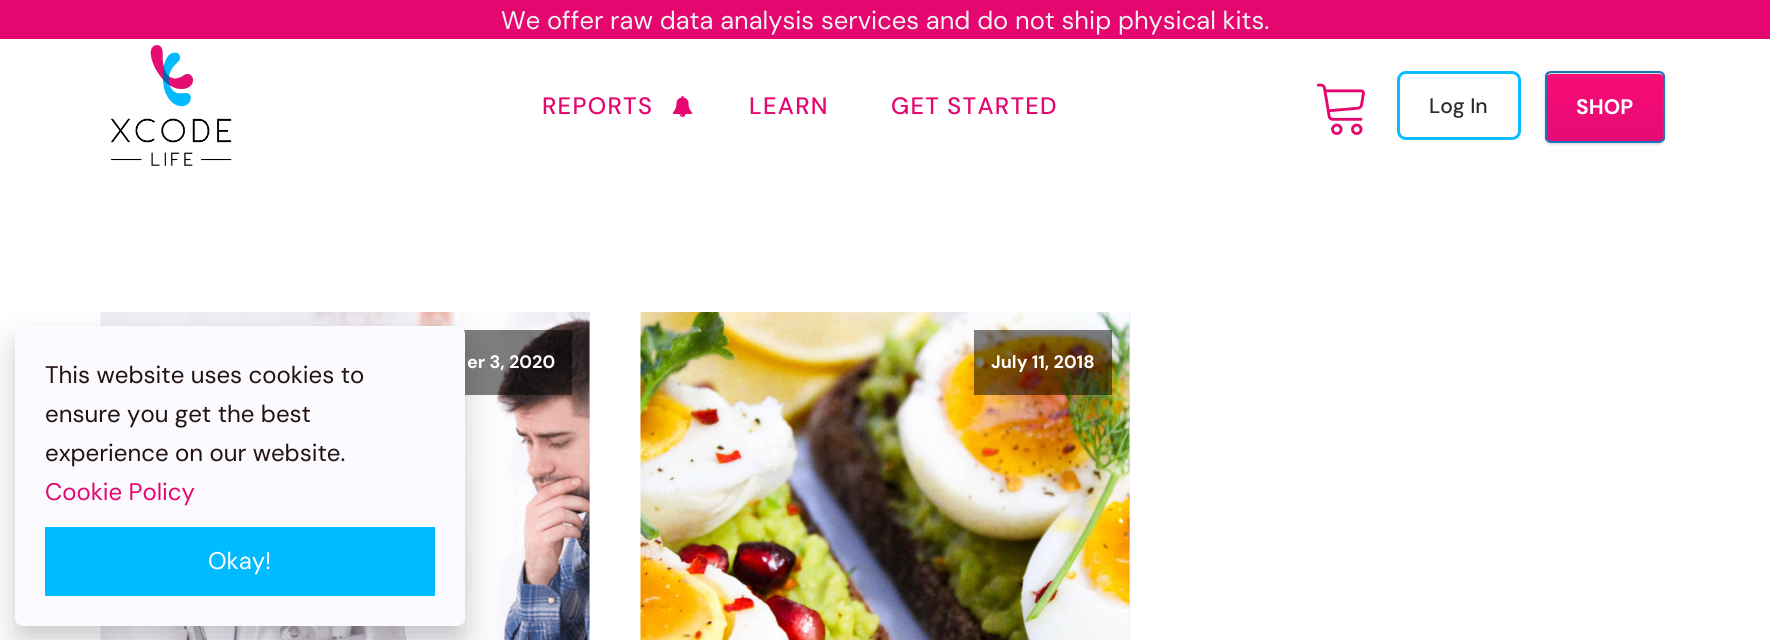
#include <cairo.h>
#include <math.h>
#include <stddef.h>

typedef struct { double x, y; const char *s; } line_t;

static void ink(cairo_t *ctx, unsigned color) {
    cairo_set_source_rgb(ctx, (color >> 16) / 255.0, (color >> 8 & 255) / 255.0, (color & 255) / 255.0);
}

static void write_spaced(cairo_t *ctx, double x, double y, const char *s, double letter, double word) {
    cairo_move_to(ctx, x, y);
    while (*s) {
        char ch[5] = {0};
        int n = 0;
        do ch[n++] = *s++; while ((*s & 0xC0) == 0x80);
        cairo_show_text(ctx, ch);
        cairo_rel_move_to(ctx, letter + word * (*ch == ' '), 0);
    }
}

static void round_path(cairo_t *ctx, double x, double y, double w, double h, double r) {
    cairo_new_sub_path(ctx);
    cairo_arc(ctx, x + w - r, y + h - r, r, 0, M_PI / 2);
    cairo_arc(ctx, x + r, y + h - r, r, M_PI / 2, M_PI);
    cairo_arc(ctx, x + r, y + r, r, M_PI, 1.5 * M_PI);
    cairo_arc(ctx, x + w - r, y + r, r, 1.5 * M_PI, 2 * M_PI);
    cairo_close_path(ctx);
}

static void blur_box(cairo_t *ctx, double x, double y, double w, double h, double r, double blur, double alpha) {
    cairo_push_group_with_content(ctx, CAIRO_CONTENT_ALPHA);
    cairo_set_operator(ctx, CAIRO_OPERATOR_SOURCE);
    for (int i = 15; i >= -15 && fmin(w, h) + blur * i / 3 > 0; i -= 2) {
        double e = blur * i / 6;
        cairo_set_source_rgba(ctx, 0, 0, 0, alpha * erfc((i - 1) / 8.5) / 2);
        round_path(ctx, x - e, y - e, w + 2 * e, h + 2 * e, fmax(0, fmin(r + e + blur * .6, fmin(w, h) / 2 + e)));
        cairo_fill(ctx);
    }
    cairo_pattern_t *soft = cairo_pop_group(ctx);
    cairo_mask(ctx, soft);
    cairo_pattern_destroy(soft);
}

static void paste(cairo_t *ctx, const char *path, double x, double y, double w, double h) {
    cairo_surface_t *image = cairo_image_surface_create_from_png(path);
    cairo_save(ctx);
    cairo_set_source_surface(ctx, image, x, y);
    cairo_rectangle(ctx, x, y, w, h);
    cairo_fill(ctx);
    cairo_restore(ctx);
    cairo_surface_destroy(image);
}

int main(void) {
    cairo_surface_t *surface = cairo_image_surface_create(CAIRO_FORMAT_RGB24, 1770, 640);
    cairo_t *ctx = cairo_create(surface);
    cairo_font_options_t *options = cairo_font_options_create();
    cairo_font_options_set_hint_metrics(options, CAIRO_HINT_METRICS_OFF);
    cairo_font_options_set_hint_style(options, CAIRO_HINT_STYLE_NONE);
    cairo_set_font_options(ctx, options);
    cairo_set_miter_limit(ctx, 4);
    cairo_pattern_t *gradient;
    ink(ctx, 0xFFFFFF);
    cairo_paint(ctx);
    ink(ctx, 0xE50670);
    cairo_rectangle(ctx, 0, 0, 1770, 39);
    cairo_fill(ctx);
    cairo_select_font_face(ctx, "DM Sans", CAIRO_FONT_SLANT_NORMAL, CAIRO_FONT_WEIGHT_NORMAL);
    cairo_set_font_size(ctx, 25.5);
    ink(ctx, 0xF2F2F2);
    cairo_move_to(ctx, 501, 29);
    cairo_show_text(ctx, "We offer raw data analysis services and do not ship physical kits.");
    paste(ctx, "media/1.png", 111, 45, 121, 121);
    cairo_select_font_face(ctx, "DM Sans Medium", CAIRO_FONT_SLANT_NORMAL, CAIRO_FONT_WEIGHT_NORMAL);
    cairo_set_font_size(ctx, 23.75);
    ink(ctx, 0xE50670);
    write_spaced(ctx, 542, 114, "REPORTS", 1.25, 0);
    paste(ctx, "media/2.png", 672, 96, 21, 21);
    write_spaced(ctx, 749, 114, "LEARN", 1.25, 0);
    write_spaced(ctx, 891, 114, "GET STARTED", 1.25, 0);
    paste(ctx, "media/3.png", 1316, 83, 49, 52);
    round_path(ctx, 1398.5, 72.5, 121, 66, 7.5);
    ink(ctx, 0x0BBDFF);
    cairo_set_line_width(ctx, 3);
    cairo_stroke(ctx);
    cairo_set_font_size(ctx, 21);
    ink(ctx, 0x2B2C28);
    cairo_move_to(ctx, 1429, 113);
    cairo_show_text(ctx, "Log In");
    ink(ctx, 0x000000);
    blur_box(ctx, 1545, 72, 120, 72, 6, 1.5, 0.2);
    cairo_save(ctx);
    round_path(ctx, 1545, 71, 120, 72, 6);
    cairo_clip(ctx);
    gradient = cairo_pattern_create_linear(1605, 72, 1605, 141);
    cairo_pattern_add_color_stop_rgba(gradient, 0, 0.98, 0.043, 0.459, 1);
    cairo_pattern_add_color_stop_rgba(gradient, 1, 0.898, 0.043, 0.459, 1);
    cairo_set_source(ctx, gradient);
    cairo_pattern_destroy(gradient);
    cairo_rectangle(ctx, 1545, 72, 120, 69);
    cairo_fill(ctx);
    cairo_restore(ctx);
    ink(ctx, 0xC8E6C9);
    cairo_new_path(ctx);
    cairo_move_to(ctx, 1551, 74);
    cairo_line_to(ctx, 1659, 74);
    cairo_curve_to(ctx, 1661, 74, 1664, 76, 1664, 78);
    cairo_line_to(ctx, 1664, 77);
    cairo_curve_to(ctx, 1664, 74, 1662, 72, 1659, 72);
    cairo_line_to(ctx, 1552, 72);
    cairo_curve_to(ctx, 1550, 72, 1548, 74, 1547, 76);
    cairo_curve_to(ctx, 1548, 75, 1550, 74, 1551, 74);
    cairo_close_path(ctx);
    cairo_fill(ctx);
    round_path(ctx, 1546, 72, 118, 70, 5);
    ink(ctx, 0x1E73BE);
    cairo_set_line_width(ctx, 2);
    cairo_stroke(ctx);
    cairo_select_font_face(ctx, "DM Sans", CAIRO_FONT_SLANT_NORMAL, CAIRO_FONT_WEIGHT_BOLD);
    ink(ctx, 0xFFFFFF);
    cairo_move_to(ctx, 1576, 114);
    cairo_show_text(ctx, "SHOP");
    gradient = cairo_pattern_create_linear(101, 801, 610, 292);
    cairo_pattern_add_color_stop_rgba(gradient, 0, 0.933, 0.933, 0.933, 1);
    cairo_pattern_add_color_stop_rgba(gradient, 0.02, 0.933, 0.933, 0.933, 1);
    cairo_pattern_add_color_stop_rgba(gradient, 0.02, 0.867, 0.867, 0.867, 1);
    cairo_pattern_add_color_stop_rgba(gradient, 0.04, 0.867, 0.867, 0.867, 1);
    cairo_pattern_add_color_stop_rgba(gradient, 0.04, 0.933, 0.933, 0.933, 1);
    cairo_pattern_add_color_stop_rgba(gradient, 0.06, 0.933, 0.933, 0.933, 1);
    cairo_pattern_add_color_stop_rgba(gradient, 0.06, 0.867, 0.867, 0.867, 1);
    cairo_pattern_add_color_stop_rgba(gradient, 0.08, 0.867, 0.867, 0.867, 1);
    cairo_pattern_add_color_stop_rgba(gradient, 0.08, 0.933, 0.933, 0.933, 1);
    cairo_pattern_add_color_stop_rgba(gradient, 0.1, 0.933, 0.933, 0.933, 1);
    cairo_pattern_add_color_stop_rgba(gradient, 0.1, 0.867, 0.867, 0.867, 1);
    cairo_pattern_add_color_stop_rgba(gradient, 0.12, 0.867, 0.867, 0.867, 1);
    cairo_pattern_add_color_stop_rgba(gradient, 0.12, 0.933, 0.933, 0.933, 1);
    cairo_pattern_add_color_stop_rgba(gradient, 0.15, 0.933, 0.933, 0.933, 1);
    cairo_pattern_add_color_stop_rgba(gradient, 0.15, 0.867, 0.867, 0.867, 1);
    cairo_pattern_add_color_stop_rgba(gradient, 0.17, 0.867, 0.867, 0.867, 1);
    cairo_pattern_add_color_stop_rgba(gradient, 0.17, 0.933, 0.933, 0.933, 1);
    cairo_pattern_add_color_stop_rgba(gradient, 0.19, 0.933, 0.933, 0.933, 1);
    cairo_pattern_add_color_stop_rgba(gradient, 0.19, 0.867, 0.867, 0.867, 1);
    cairo_pattern_add_color_stop_rgba(gradient, 0.21, 0.867, 0.867, 0.867, 1);
    cairo_pattern_add_color_stop_rgba(gradient, 0.21, 0.933, 0.933, 0.933, 1);
    cairo_pattern_add_color_stop_rgba(gradient, 0.23, 0.933, 0.933, 0.933, 1);
    cairo_pattern_add_color_stop_rgba(gradient, 0.23, 0.867, 0.867, 0.867, 1);
    cairo_pattern_add_color_stop_rgba(gradient, 0.25, 0.867, 0.867, 0.867, 1);
    cairo_pattern_add_color_stop_rgba(gradient, 0.25, 0.933, 0.933, 0.933, 1);
    cairo_pattern_add_color_stop_rgba(gradient, 0.27, 0.933, 0.933, 0.933, 1);
    cairo_pattern_add_color_stop_rgba(gradient, 0.27, 0.867, 0.867, 0.867, 1);
    cairo_pattern_add_color_stop_rgba(gradient, 0.29, 0.867, 0.867, 0.867, 1);
    cairo_pattern_add_color_stop_rgba(gradient, 0.29, 0.933, 0.933, 0.933, 1);
    cairo_pattern_add_color_stop_rgba(gradient, 0.31, 0.933, 0.933, 0.933, 1);
    cairo_pattern_add_color_stop_rgba(gradient, 0.31, 0.867, 0.867, 0.867, 1);
    cairo_pattern_add_color_stop_rgba(gradient, 0.33, 0.867, 0.867, 0.867, 1);
    cairo_pattern_add_color_stop_rgba(gradient, 0.33, 0.933, 0.933, 0.933, 1);
    cairo_pattern_add_color_stop_rgba(gradient, 0.35, 0.933, 0.933, 0.933, 1);
    cairo_pattern_add_color_stop_rgba(gradient, 0.35, 0.867, 0.867, 0.867, 1);
    cairo_pattern_add_color_stop_rgba(gradient, 0.37, 0.867, 0.867, 0.867, 1);
    cairo_pattern_add_color_stop_rgba(gradient, 0.37, 0.933, 0.933, 0.933, 1);
    cairo_pattern_add_color_stop_rgba(gradient, 0.4, 0.933, 0.933, 0.933, 1);
    cairo_pattern_add_color_stop_rgba(gradient, 0.4, 0.867, 0.867, 0.867, 1);
    cairo_pattern_add_color_stop_rgba(gradient, 0.42, 0.867, 0.867, 0.867, 1);
    cairo_pattern_add_color_stop_rgba(gradient, 0.42, 0.933, 0.933, 0.933, 1);
    cairo_pattern_add_color_stop_rgba(gradient, 0.44, 0.933, 0.933, 0.933, 1);
    cairo_pattern_add_color_stop_rgba(gradient, 0.44, 0.867, 0.867, 0.867, 1);
    cairo_pattern_add_color_stop_rgba(gradient, 0.46, 0.867, 0.867, 0.867, 1);
    cairo_pattern_add_color_stop_rgba(gradient, 0.46, 0.933, 0.933, 0.933, 1);
    cairo_pattern_add_color_stop_rgba(gradient, 0.48, 0.933, 0.933, 0.933, 1);
    cairo_pattern_add_color_stop_rgba(gradient, 0.48, 0.867, 0.867, 0.867, 1);
    cairo_pattern_add_color_stop_rgba(gradient, 0.5, 0.867, 0.867, 0.867, 1);
    cairo_pattern_add_color_stop_rgba(gradient, 0.5, 0.933, 0.933, 0.933, 1);
    cairo_pattern_add_color_stop_rgba(gradient, 0.52, 0.933, 0.933, 0.933, 1);
    cairo_pattern_add_color_stop_rgba(gradient, 0.52, 0.867, 0.867, 0.867, 1);
    cairo_pattern_add_color_stop_rgba(gradient, 0.54, 0.867, 0.867, 0.867, 1);
    cairo_pattern_add_color_stop_rgba(gradient, 0.54, 0.933, 0.933, 0.933, 1);
    cairo_pattern_add_color_stop_rgba(gradient, 0.56, 0.933, 0.933, 0.933, 1);
    cairo_pattern_add_color_stop_rgba(gradient, 0.56, 0.867, 0.867, 0.867, 1);
    cairo_pattern_add_color_stop_rgba(gradient, 0.58, 0.867, 0.867, 0.867, 1);
    cairo_pattern_add_color_stop_rgba(gradient, 0.58, 0.933, 0.933, 0.933, 1);
    cairo_pattern_add_color_stop_rgba(gradient, 0.6, 0.933, 0.933, 0.933, 1);
    cairo_pattern_add_color_stop_rgba(gradient, 0.6, 0.867, 0.867, 0.867, 1);
    cairo_pattern_add_color_stop_rgba(gradient, 0.62, 0.867, 0.867, 0.867, 1);
    cairo_pattern_add_color_stop_rgba(gradient, 0.62, 0.933, 0.933, 0.933, 1);
    cairo_pattern_add_color_stop_rgba(gradient, 0.65, 0.933, 0.933, 0.933, 1);
    cairo_pattern_add_color_stop_rgba(gradient, 0.65, 0.867, 0.867, 0.867, 1);
    cairo_pattern_add_color_stop_rgba(gradient, 0.67, 0.867, 0.867, 0.867, 1);
    cairo_pattern_add_color_stop_rgba(gradient, 0.67, 0.933, 0.933, 0.933, 1);
    cairo_pattern_add_color_stop_rgba(gradient, 0.69, 0.933, 0.933, 0.933, 1);
    cairo_pattern_add_color_stop_rgba(gradient, 0.69, 0.867, 0.867, 0.867, 1);
    cairo_pattern_add_color_stop_rgba(gradient, 0.71, 0.867, 0.867, 0.867, 1);
    cairo_pattern_add_color_stop_rgba(gradient, 0.71, 0.933, 0.933, 0.933, 1);
    cairo_pattern_add_color_stop_rgba(gradient, 0.73, 0.933, 0.933, 0.933, 1);
    cairo_pattern_add_color_stop_rgba(gradient, 0.73, 0.867, 0.867, 0.867, 1);
    cairo_pattern_add_color_stop_rgba(gradient, 0.75, 0.867, 0.867, 0.867, 1);
    cairo_pattern_add_color_stop_rgba(gradient, 0.75, 0.933, 0.933, 0.933, 1);
    cairo_pattern_add_color_stop_rgba(gradient, 0.77, 0.933, 0.933, 0.933, 1);
    cairo_pattern_add_color_stop_rgba(gradient, 0.77, 0.867, 0.867, 0.867, 1);
    cairo_pattern_add_color_stop_rgba(gradient, 0.79, 0.867, 0.867, 0.867, 1);
    cairo_pattern_add_color_stop_rgba(gradient, 0.79, 0.933, 0.933, 0.933, 1);
    cairo_pattern_add_color_stop_rgba(gradient, 0.81, 0.933, 0.933, 0.933, 1);
    cairo_pattern_add_color_stop_rgba(gradient, 0.81, 0.867, 0.867, 0.867, 1);
    cairo_pattern_add_color_stop_rgba(gradient, 0.83, 0.867, 0.867, 0.867, 1);
    cairo_pattern_add_color_stop_rgba(gradient, 0.83, 0.933, 0.933, 0.933, 1);
    cairo_pattern_add_color_stop_rgba(gradient, 0.85, 0.933, 0.933, 0.933, 1);
    cairo_pattern_add_color_stop_rgba(gradient, 0.85, 0.867, 0.867, 0.867, 1);
    cairo_pattern_add_color_stop_rgba(gradient, 0.87, 0.867, 0.867, 0.867, 1);
    cairo_pattern_add_color_stop_rgba(gradient, 0.88, 0.933, 0.933, 0.933, 1);
    cairo_pattern_add_color_stop_rgba(gradient, 0.9, 0.933, 0.933, 0.933, 1);
    cairo_pattern_add_color_stop_rgba(gradient, 0.9, 0.867, 0.867, 0.867, 1);
    cairo_pattern_add_color_stop_rgba(gradient, 0.92, 0.867, 0.867, 0.867, 1);
    cairo_pattern_add_color_stop_rgba(gradient, 0.92, 0.933, 0.933, 0.933, 1);
    cairo_pattern_add_color_stop_rgba(gradient, 0.94, 0.933, 0.933, 0.933, 1);
    cairo_pattern_add_color_stop_rgba(gradient, 0.94, 0.867, 0.867, 0.867, 1);
    cairo_pattern_add_color_stop_rgba(gradient, 0.96, 0.867, 0.867, 0.867, 1);
    cairo_pattern_add_color_stop_rgba(gradient, 0.96, 0.933, 0.933, 0.933, 1);
    cairo_pattern_add_color_stop_rgba(gradient, 0.98, 0.933, 0.933, 0.933, 1);
    cairo_pattern_add_color_stop_rgba(gradient, 0.98, 0.867, 0.867, 0.867, 1);
    cairo_pattern_add_color_stop_rgba(gradient, 1, 0.867, 0.867, 0.867, 1);
    cairo_set_source(ctx, gradient);
    cairo_pattern_destroy(gradient);
    cairo_rectangle(ctx, 542, 312, 48, 328);
    cairo_fill(ctx);
    paste(ctx, "media/4.png", 100, 312, 490, 328);
    cairo_set_source_rgba(ctx, 0, 0, 0, 0.5);
    cairo_rectangle(ctx, 463, 330, 109, 65);
    cairo_fill(ctx);
    ink(ctx, 0x000000);
    blur_box(ctx, 15, 341, 450, 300, 8, 15, 0.2);
    ink(ctx, 0xFAFAFF);
    round_path(ctx, 15, 326, 450, 300, 8);
    cairo_fill(ctx);
    cairo_select_font_face(ctx, "DM Sans", CAIRO_FONT_SLANT_NORMAL, CAIRO_FONT_WEIGHT_NORMAL);
    cairo_set_font_size(ctx, 24);
    ink(ctx, 0x221111);
    {
        static const line_t items[] = {
            {45, 383, "This website uses cookies to"},
            {45, 422, "ensure you get the best"},
            {45, 461, "experience on our website."},
        };
        for (size_t i = 0; i < sizeof items / sizeof *items; i++) {
            cairo_move_to(ctx, items[i].x, items[i].y);
            cairo_show_text(ctx, items[i].s);
        }
    }
    ink(ctx, 0xE50670);
    cairo_move_to(ctx, 45, 500);
    cairo_show_text(ctx, "Cookie Policy");
    ink(ctx, 0x00BBFF);
    cairo_rectangle(ctx, 45, 527, 390, 69);
    cairo_fill(ctx);
    ink(ctx, 0xFFFFFF);
    cairo_move_to(ctx, 208, 569);
    cairo_show_text(ctx, "Okay!");
    cairo_select_font_face(ctx, "DM Sans", CAIRO_FONT_SLANT_NORMAL, CAIRO_FONT_WEIGHT_BOLD);
    cairo_set_font_size(ctx, 18);
    cairo_move_to(ctx, 467, 368);
    cairo_show_text(ctx, "er 3, 2020");
    gradient = cairo_pattern_create_linear(641, 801, 1150, 292);
    cairo_pattern_add_color_stop_rgba(gradient, 0, 0.933, 0.933, 0.933, 1);
    cairo_pattern_add_color_stop_rgba(gradient, 0.02, 0.933, 0.933, 0.933, 1);
    cairo_pattern_add_color_stop_rgba(gradient, 0.02, 0.867, 0.867, 0.867, 1);
    cairo_pattern_add_color_stop_rgba(gradient, 0.04, 0.867, 0.867, 0.867, 1);
    cairo_pattern_add_color_stop_rgba(gradient, 0.04, 0.933, 0.933, 0.933, 1);
    cairo_pattern_add_color_stop_rgba(gradient, 0.06, 0.933, 0.933, 0.933, 1);
    cairo_pattern_add_color_stop_rgba(gradient, 0.06, 0.867, 0.867, 0.867, 1);
    cairo_pattern_add_color_stop_rgba(gradient, 0.08, 0.867, 0.867, 0.867, 1);
    cairo_pattern_add_color_stop_rgba(gradient, 0.08, 0.933, 0.933, 0.933, 1);
    cairo_pattern_add_color_stop_rgba(gradient, 0.1, 0.933, 0.933, 0.933, 1);
    cairo_pattern_add_color_stop_rgba(gradient, 0.1, 0.867, 0.867, 0.867, 1);
    cairo_pattern_add_color_stop_rgba(gradient, 0.12, 0.867, 0.867, 0.867, 1);
    cairo_pattern_add_color_stop_rgba(gradient, 0.12, 0.933, 0.933, 0.933, 1);
    cairo_pattern_add_color_stop_rgba(gradient, 0.15, 0.933, 0.933, 0.933, 1);
    cairo_pattern_add_color_stop_rgba(gradient, 0.15, 0.867, 0.867, 0.867, 1);
    cairo_pattern_add_color_stop_rgba(gradient, 0.17, 0.867, 0.867, 0.867, 1);
    cairo_pattern_add_color_stop_rgba(gradient, 0.17, 0.933, 0.933, 0.933, 1);
    cairo_pattern_add_color_stop_rgba(gradient, 0.19, 0.933, 0.933, 0.933, 1);
    cairo_pattern_add_color_stop_rgba(gradient, 0.19, 0.867, 0.867, 0.867, 1);
    cairo_pattern_add_color_stop_rgba(gradient, 0.21, 0.867, 0.867, 0.867, 1);
    cairo_pattern_add_color_stop_rgba(gradient, 0.21, 0.933, 0.933, 0.933, 1);
    cairo_pattern_add_color_stop_rgba(gradient, 0.23, 0.933, 0.933, 0.933, 1);
    cairo_pattern_add_color_stop_rgba(gradient, 0.23, 0.867, 0.867, 0.867, 1);
    cairo_pattern_add_color_stop_rgba(gradient, 0.25, 0.867, 0.867, 0.867, 1);
    cairo_pattern_add_color_stop_rgba(gradient, 0.25, 0.933, 0.933, 0.933, 1);
    cairo_pattern_add_color_stop_rgba(gradient, 0.27, 0.933, 0.933, 0.933, 1);
    cairo_pattern_add_color_stop_rgba(gradient, 0.27, 0.867, 0.867, 0.867, 1);
    cairo_pattern_add_color_stop_rgba(gradient, 0.29, 0.867, 0.867, 0.867, 1);
    cairo_pattern_add_color_stop_rgba(gradient, 0.29, 0.933, 0.933, 0.933, 1);
    cairo_pattern_add_color_stop_rgba(gradient, 0.31, 0.933, 0.933, 0.933, 1);
    cairo_pattern_add_color_stop_rgba(gradient, 0.31, 0.867, 0.867, 0.867, 1);
    cairo_pattern_add_color_stop_rgba(gradient, 0.33, 0.867, 0.867, 0.867, 1);
    cairo_pattern_add_color_stop_rgba(gradient, 0.33, 0.933, 0.933, 0.933, 1);
    cairo_pattern_add_color_stop_rgba(gradient, 0.35, 0.933, 0.933, 0.933, 1);
    cairo_pattern_add_color_stop_rgba(gradient, 0.35, 0.867, 0.867, 0.867, 1);
    cairo_pattern_add_color_stop_rgba(gradient, 0.37, 0.867, 0.867, 0.867, 1);
    cairo_pattern_add_color_stop_rgba(gradient, 0.37, 0.933, 0.933, 0.933, 1);
    cairo_pattern_add_color_stop_rgba(gradient, 0.4, 0.933, 0.933, 0.933, 1);
    cairo_pattern_add_color_stop_rgba(gradient, 0.4, 0.867, 0.867, 0.867, 1);
    cairo_pattern_add_color_stop_rgba(gradient, 0.42, 0.867, 0.867, 0.867, 1);
    cairo_pattern_add_color_stop_rgba(gradient, 0.42, 0.933, 0.933, 0.933, 1);
    cairo_pattern_add_color_stop_rgba(gradient, 0.44, 0.933, 0.933, 0.933, 1);
    cairo_pattern_add_color_stop_rgba(gradient, 0.44, 0.867, 0.867, 0.867, 1);
    cairo_pattern_add_color_stop_rgba(gradient, 0.46, 0.867, 0.867, 0.867, 1);
    cairo_pattern_add_color_stop_rgba(gradient, 0.46, 0.933, 0.933, 0.933, 1);
    cairo_pattern_add_color_stop_rgba(gradient, 0.48, 0.933, 0.933, 0.933, 1);
    cairo_pattern_add_color_stop_rgba(gradient, 0.48, 0.867, 0.867, 0.867, 1);
    cairo_pattern_add_color_stop_rgba(gradient, 0.5, 0.867, 0.867, 0.867, 1);
    cairo_pattern_add_color_stop_rgba(gradient, 0.5, 0.933, 0.933, 0.933, 1);
    cairo_pattern_add_color_stop_rgba(gradient, 0.52, 0.933, 0.933, 0.933, 1);
    cairo_pattern_add_color_stop_rgba(gradient, 0.52, 0.867, 0.867, 0.867, 1);
    cairo_pattern_add_color_stop_rgba(gradient, 0.54, 0.867, 0.867, 0.867, 1);
    cairo_pattern_add_color_stop_rgba(gradient, 0.54, 0.933, 0.933, 0.933, 1);
    cairo_pattern_add_color_stop_rgba(gradient, 0.56, 0.933, 0.933, 0.933, 1);
    cairo_pattern_add_color_stop_rgba(gradient, 0.56, 0.867, 0.867, 0.867, 1);
    cairo_pattern_add_color_stop_rgba(gradient, 0.58, 0.867, 0.867, 0.867, 1);
    cairo_pattern_add_color_stop_rgba(gradient, 0.58, 0.933, 0.933, 0.933, 1);
    cairo_pattern_add_color_stop_rgba(gradient, 0.6, 0.933, 0.933, 0.933, 1);
    cairo_pattern_add_color_stop_rgba(gradient, 0.6, 0.867, 0.867, 0.867, 1);
    cairo_pattern_add_color_stop_rgba(gradient, 0.62, 0.867, 0.867, 0.867, 1);
    cairo_pattern_add_color_stop_rgba(gradient, 0.62, 0.933, 0.933, 0.933, 1);
    cairo_pattern_add_color_stop_rgba(gradient, 0.65, 0.933, 0.933, 0.933, 1);
    cairo_pattern_add_color_stop_rgba(gradient, 0.65, 0.867, 0.867, 0.867, 1);
    cairo_pattern_add_color_stop_rgba(gradient, 0.67, 0.867, 0.867, 0.867, 1);
    cairo_pattern_add_color_stop_rgba(gradient, 0.67, 0.933, 0.933, 0.933, 1);
    cairo_pattern_add_color_stop_rgba(gradient, 0.69, 0.933, 0.933, 0.933, 1);
    cairo_pattern_add_color_stop_rgba(gradient, 0.69, 0.867, 0.867, 0.867, 1);
    cairo_pattern_add_color_stop_rgba(gradient, 0.71, 0.867, 0.867, 0.867, 1);
    cairo_pattern_add_color_stop_rgba(gradient, 0.71, 0.933, 0.933, 0.933, 1);
    cairo_pattern_add_color_stop_rgba(gradient, 0.73, 0.933, 0.933, 0.933, 1);
    cairo_pattern_add_color_stop_rgba(gradient, 0.73, 0.867, 0.867, 0.867, 1);
    cairo_pattern_add_color_stop_rgba(gradient, 0.75, 0.867, 0.867, 0.867, 1);
    cairo_pattern_add_color_stop_rgba(gradient, 0.75, 0.933, 0.933, 0.933, 1);
    cairo_pattern_add_color_stop_rgba(gradient, 0.77, 0.933, 0.933, 0.933, 1);
    cairo_pattern_add_color_stop_rgba(gradient, 0.77, 0.867, 0.867, 0.867, 1);
    cairo_pattern_add_color_stop_rgba(gradient, 0.79, 0.867, 0.867, 0.867, 1);
    cairo_pattern_add_color_stop_rgba(gradient, 0.79, 0.933, 0.933, 0.933, 1);
    cairo_pattern_add_color_stop_rgba(gradient, 0.81, 0.933, 0.933, 0.933, 1);
    cairo_pattern_add_color_stop_rgba(gradient, 0.81, 0.867, 0.867, 0.867, 1);
    cairo_pattern_add_color_stop_rgba(gradient, 0.83, 0.867, 0.867, 0.867, 1);
    cairo_pattern_add_color_stop_rgba(gradient, 0.83, 0.933, 0.933, 0.933, 1);
    cairo_pattern_add_color_stop_rgba(gradient, 0.85, 0.933, 0.933, 0.933, 1);
    cairo_pattern_add_color_stop_rgba(gradient, 0.85, 0.867, 0.867, 0.867, 1);
    cairo_pattern_add_color_stop_rgba(gradient, 0.87, 0.867, 0.867, 0.867, 1);
    cairo_pattern_add_color_stop_rgba(gradient, 0.88, 0.933, 0.933, 0.933, 1);
    cairo_pattern_add_color_stop_rgba(gradient, 0.9, 0.933, 0.933, 0.933, 1);
    cairo_pattern_add_color_stop_rgba(gradient, 0.9, 0.867, 0.867, 0.867, 1);
    cairo_pattern_add_color_stop_rgba(gradient, 0.92, 0.867, 0.867, 0.867, 1);
    cairo_pattern_add_color_stop_rgba(gradient, 0.92, 0.933, 0.933, 0.933, 1);
    cairo_pattern_add_color_stop_rgba(gradient, 0.94, 0.933, 0.933, 0.933, 1);
    cairo_pattern_add_color_stop_rgba(gradient, 0.94, 0.867, 0.867, 0.867, 1);
    cairo_pattern_add_color_stop_rgba(gradient, 0.96, 0.867, 0.867, 0.867, 1);
    cairo_pattern_add_color_stop_rgba(gradient, 0.96, 0.933, 0.933, 0.933, 1);
    cairo_pattern_add_color_stop_rgba(gradient, 0.98, 0.933, 0.933, 0.933, 1);
    cairo_pattern_add_color_stop_rgba(gradient, 0.98, 0.867, 0.867, 0.867, 1);
    cairo_pattern_add_color_stop_rgba(gradient, 1, 0.867, 0.867, 0.867, 1);
    cairo_set_source(ctx, gradient);
    cairo_pattern_destroy(gradient);
    cairo_rectangle(ctx, 1129, 312, 1, 328);
    cairo_fill(ctx);
    paste(ctx, "media/5.png", 640, 312, 490, 328);
    cairo_set_source_rgba(ctx, 0, 0, 0, 0.5);
    cairo_rectangle(ctx, 974, 330, 138, 65);
    cairo_fill(ctx);
    ink(ctx, 0xFFFFFF);
    cairo_move_to(ctx, 991, 368);
    cairo_show_text(ctx, "July 11, 2018");
    cairo_surface_write_to_png(surface, "image.png");
    cairo_font_options_destroy(options);
    cairo_destroy(ctx);
    cairo_surface_destroy(surface);
    return 0;
}
